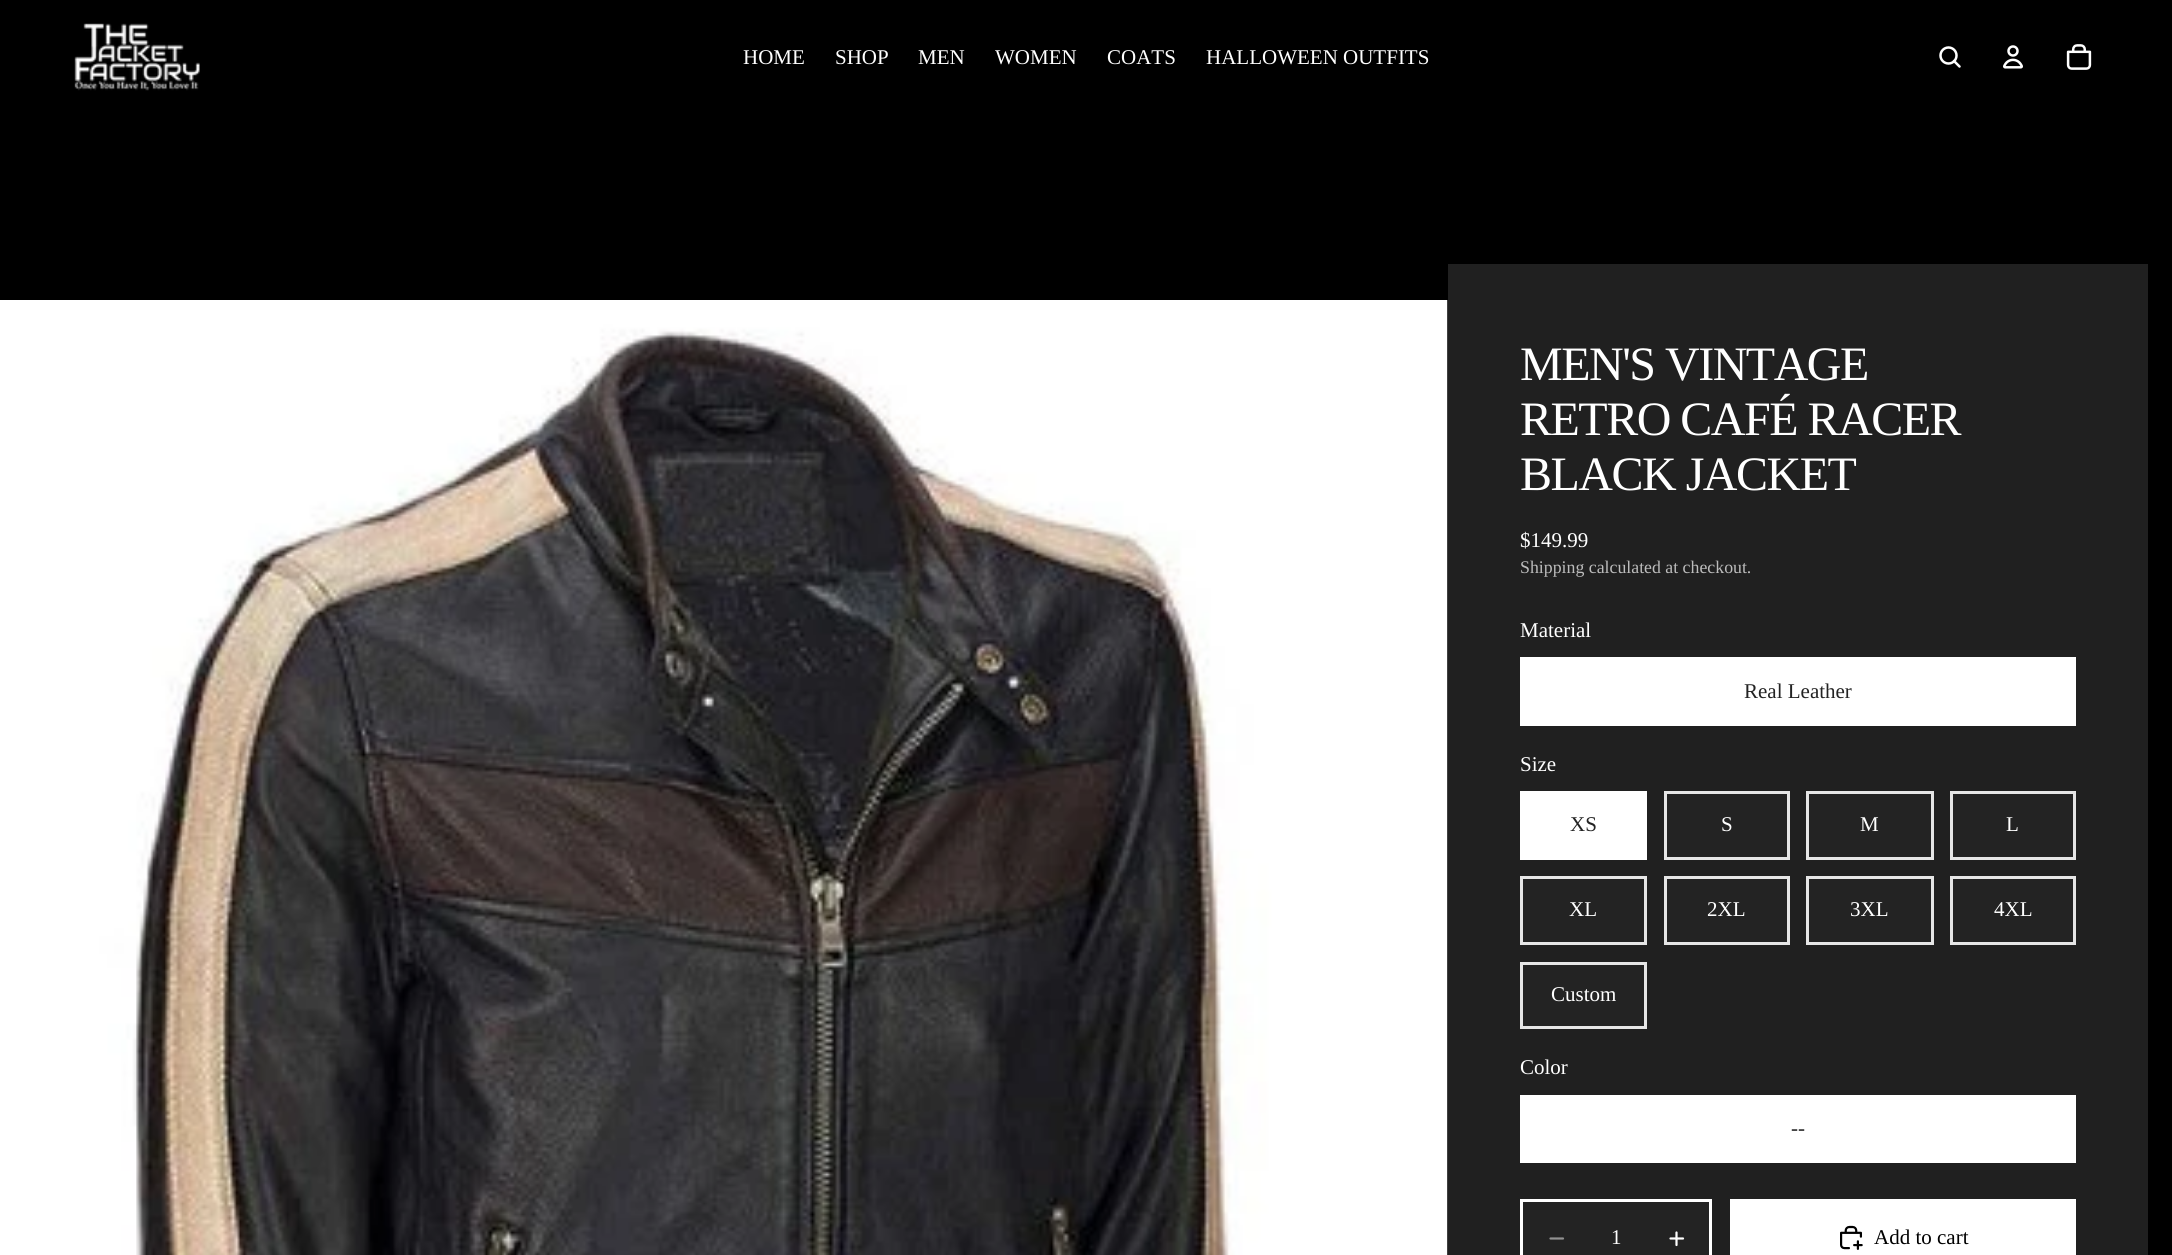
#include <cairo.h>
#include <math.h>
#include <stddef.h>

typedef struct { double x, y; const char *s; } line_t;

static void ink(cairo_t *ctx, unsigned color) {
    cairo_set_source_rgb(ctx, (color >> 16) / 255.0, (color >> 8 & 255) / 255.0, (color & 255) / 255.0);
}

static void write_spaced(cairo_t *ctx, double x, double y, const char *s, double letter, double word) {
    cairo_move_to(ctx, x, y);
    while (*s) {
        char ch[5] = {0};
        int n = 0;
        do ch[n++] = *s++; while ((*s & 0xC0) == 0x80);
        cairo_show_text(ctx, ch);
        cairo_rel_move_to(ctx, letter + word * (*ch == ' '), 0);
    }
}

static void paste(cairo_t *ctx, const char *path, double x, double y, double w, double h) {
    cairo_surface_t *image = cairo_image_surface_create_from_png(path);
    cairo_save(ctx);
    cairo_set_source_surface(ctx, image, x, y);
    cairo_rectangle(ctx, x, y, w, h);
    cairo_fill(ctx);
    cairo_restore(ctx);
    cairo_surface_destroy(image);
}

int main(void) {
    cairo_surface_t *surface = cairo_image_surface_create(CAIRO_FORMAT_RGB24, 2172, 1255);
    cairo_t *ctx = cairo_create(surface);
    cairo_font_options_t *options = cairo_font_options_create();
    cairo_font_options_set_hint_metrics(options, CAIRO_HINT_METRICS_OFF);
    cairo_font_options_set_hint_style(options, CAIRO_HINT_STYLE_NONE);
    cairo_set_font_options(ctx, options);
    cairo_set_miter_limit(ctx, 4);
    ink(ctx, 0x000000);
    cairo_paint(ctx);
    paste(ctx, "media/1.png", 74, 23, 126, 68);
    cairo_select_font_face(ctx, "Liberation Serif", CAIRO_FONT_SLANT_NORMAL, CAIRO_FONT_WEIGHT_NORMAL);
    cairo_set_font_size(ctx, 21);
    ink(ctx, 0xFFFFFF);
    {
        static const line_t items[] = {
            {743, 64, "HOME"},
            {835, 64, "SHOP"},
            {918, 64, "MEN"},
            {995, 64, "WOMEN"},
            {1107, 64, "COATS"},
            {1206, 64, "HALLOWEEN OUTFITS"},
        };
        for (size_t i = 0; i < sizeof items / sizeof *items; i++) {
            cairo_move_to(ctx, items[i].x, items[i].y);
            cairo_show_text(ctx, items[i].s);
        }
    }
    cairo_new_path(ctx);
    cairo_arc(ctx, 1948.5, 55.5, 8, 0, 2 * M_PI);
    cairo_set_line_width(ctx, 2.5);
    cairo_stroke(ctx);
    cairo_new_path(ctx);
    cairo_move_to(ctx, 1954, 61);
    cairo_line_to(ctx, 1959.5, 66.5);
    cairo_set_line_cap(ctx, CAIRO_LINE_CAP_ROUND);
    cairo_set_line_join(ctx, CAIRO_LINE_JOIN_ROUND);
    cairo_stroke(ctx);
    paste(ctx, "media/2.png", 2003, 45, 20, 24);
    paste(ctx, "media/3.png", 2066, 44, 26, 26);
    paste(ctx, "media/4.png", 0, 300, 1448, 955);
    ink(ctx, 0x202020);
    cairo_rectangle(ctx, 1448, 264, 700, 991);
    cairo_fill(ctx);
    cairo_set_font_size(ctx, 48);
    ink(ctx, 0xFFFFFF);
    {
        static const line_t items[] = {
            {1520, 380, "MEN'S VINTAGE"},
            {1520, 435, "RETRO CAFÉ RACER"},
            {1520, 490, "BLACK JACKET"},
        };
        for (size_t i = 0; i < sizeof items / sizeof *items; i++) {
            write_spaced(ctx, items[i].x, items[i].y, items[i].s, -1.5, 0);
        }
    }
    cairo_set_font_size(ctx, 21);
    cairo_move_to(ctx, 1520, 547);
    cairo_show_text(ctx, "$149.99");
    cairo_set_font_size(ctx, 17.8);
    ink(ctx, 0xBCBCBC);
    cairo_move_to(ctx, 1520, 573);
    cairo_show_text(ctx, "Shipping calculated at checkout.");
    cairo_set_font_size(ctx, 21);
    ink(ctx, 0xFFFFFF);
    cairo_move_to(ctx, 1520, 637);
    cairo_show_text(ctx, "Material");
    cairo_rectangle(ctx, 1521.5, 658.5, 553, 66);
    cairo_set_line_width(ctx, 3);
    cairo_set_line_cap(ctx, CAIRO_LINE_CAP_BUTT);
    cairo_set_line_join(ctx, CAIRO_LINE_JOIN_MITER);
    cairo_stroke(ctx);
    cairo_rectangle(ctx, 1523, 660, 550, 63);
    cairo_fill(ctx);
    ink(ctx, 0x232323);
    cairo_move_to(ctx, 1744, 698);
    cairo_show_text(ctx, "Real Leather");
    ink(ctx, 0xFFFFFF);
    cairo_move_to(ctx, 1520, 771);
    cairo_show_text(ctx, "Size");
    cairo_rectangle(ctx, 1521.5, 792.5, 124, 66);
    cairo_stroke(ctx);
    cairo_rectangle(ctx, 1523, 794, 121, 63);
    cairo_fill(ctx);
    ink(ctx, 0x232323);
    cairo_move_to(ctx, 1570, 831);
    cairo_show_text(ctx, "XS");
    cairo_rectangle(ctx, 1665.5, 792.5, 123, 66);
    cairo_fill_preserve(ctx);
    ink(ctx, 0xE6E6E6);
    cairo_stroke(ctx);
    ink(ctx, 0xFFFFFF);
    cairo_move_to(ctx, 1721, 831);
    cairo_show_text(ctx, "S");
    ink(ctx, 0x232323);
    cairo_rectangle(ctx, 1807.5, 792.5, 125, 66);
    cairo_fill_preserve(ctx);
    ink(ctx, 0xE6E6E6);
    cairo_stroke(ctx);
    ink(ctx, 0xFFFFFF);
    cairo_move_to(ctx, 1860, 831);
    cairo_show_text(ctx, "M");
    ink(ctx, 0x232323);
    cairo_rectangle(ctx, 1951.5, 792.5, 123, 66);
    cairo_fill_preserve(ctx);
    ink(ctx, 0xE6E6E6);
    cairo_stroke(ctx);
    ink(ctx, 0xFFFFFF);
    cairo_move_to(ctx, 2006, 831);
    cairo_show_text(ctx, "L");
    ink(ctx, 0x232323);
    cairo_rectangle(ctx, 1521.5, 877.5, 124, 66);
    cairo_fill_preserve(ctx);
    ink(ctx, 0xE6E6E6);
    cairo_stroke(ctx);
    ink(ctx, 0xFFFFFF);
    cairo_move_to(ctx, 1569, 916);
    cairo_show_text(ctx, "XL");
    ink(ctx, 0x232323);
    cairo_rectangle(ctx, 1665.5, 877.5, 123, 66);
    cairo_fill_preserve(ctx);
    ink(ctx, 0xE6E6E6);
    cairo_stroke(ctx);
    ink(ctx, 0xFFFFFF);
    cairo_move_to(ctx, 1707, 916);
    cairo_show_text(ctx, "2XL");
    ink(ctx, 0x232323);
    cairo_rectangle(ctx, 1807.5, 877.5, 125, 66);
    cairo_fill_preserve(ctx);
    ink(ctx, 0xE6E6E6);
    cairo_stroke(ctx);
    ink(ctx, 0xFFFFFF);
    cairo_move_to(ctx, 1850, 916);
    cairo_show_text(ctx, "3XL");
    ink(ctx, 0x232323);
    cairo_rectangle(ctx, 1951.5, 877.5, 123, 66);
    cairo_fill_preserve(ctx);
    ink(ctx, 0xE6E6E6);
    cairo_stroke(ctx);
    ink(ctx, 0xFFFFFF);
    cairo_move_to(ctx, 1994, 916);
    cairo_show_text(ctx, "4XL");
    ink(ctx, 0x232323);
    cairo_rectangle(ctx, 1521.5, 963.5, 124, 64);
    cairo_fill_preserve(ctx);
    ink(ctx, 0xE6E6E6);
    cairo_stroke(ctx);
    ink(ctx, 0xFFFFFF);
    cairo_move_to(ctx, 1551, 1001);
    cairo_show_text(ctx, "Custom");
    cairo_move_to(ctx, 1520, 1074);
    cairo_show_text(ctx, "Color");
    cairo_rectangle(ctx, 1521.5, 1096.5, 553, 65);
    cairo_stroke(ctx);
    cairo_rectangle(ctx, 1523, 1098, 550, 62);
    cairo_fill(ctx);
    ink(ctx, 0x232323);
    cairo_move_to(ctx, 1791, 1135);
    cairo_show_text(ctx, "--");
    cairo_rectangle(ctx, 1521.5, 1200.5, 189, 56);
    cairo_fill_preserve(ctx);
    ink(ctx, 0xFFFFFF);
    cairo_stroke(ctx);
    cairo_new_path(ctx);
    cairo_move_to(ctx, 1550.5, 1238.5);
    cairo_line_to(ctx, 1563, 1238.5);
    ink(ctx, 0x919191);
    cairo_set_line_width(ctx, 2.2);
    cairo_set_line_cap(ctx, CAIRO_LINE_CAP_ROUND);
    cairo_stroke(ctx);
    ink(ctx, 0xFFFFFF);
    cairo_move_to(ctx, 1611, 1244);
    cairo_show_text(ctx, "1");
    cairo_new_path(ctx);
    cairo_move_to(ctx, 1670.5, 1238.5);
    cairo_line_to(ctx, 1683, 1238.5);
    cairo_move_to(ctx, 1676.5, 1232.5);
    cairo_line_to(ctx, 1676.5, 1245);
    cairo_stroke(ctx);
    cairo_rectangle(ctx, 1730, 1199, 346, 56);
    cairo_fill(ctx);
    paste(ctx, "media/5.png", 1840, 1225, 23, 25);
    ink(ctx, 0x000000);
    cairo_move_to(ctx, 1874, 1244);
    cairo_show_text(ctx, "Add to cart");
    cairo_surface_write_to_png(surface, "image.png");
    cairo_font_options_destroy(options);
    cairo_destroy(ctx);
    cairo_surface_destroy(surface);
    return 0;
}
